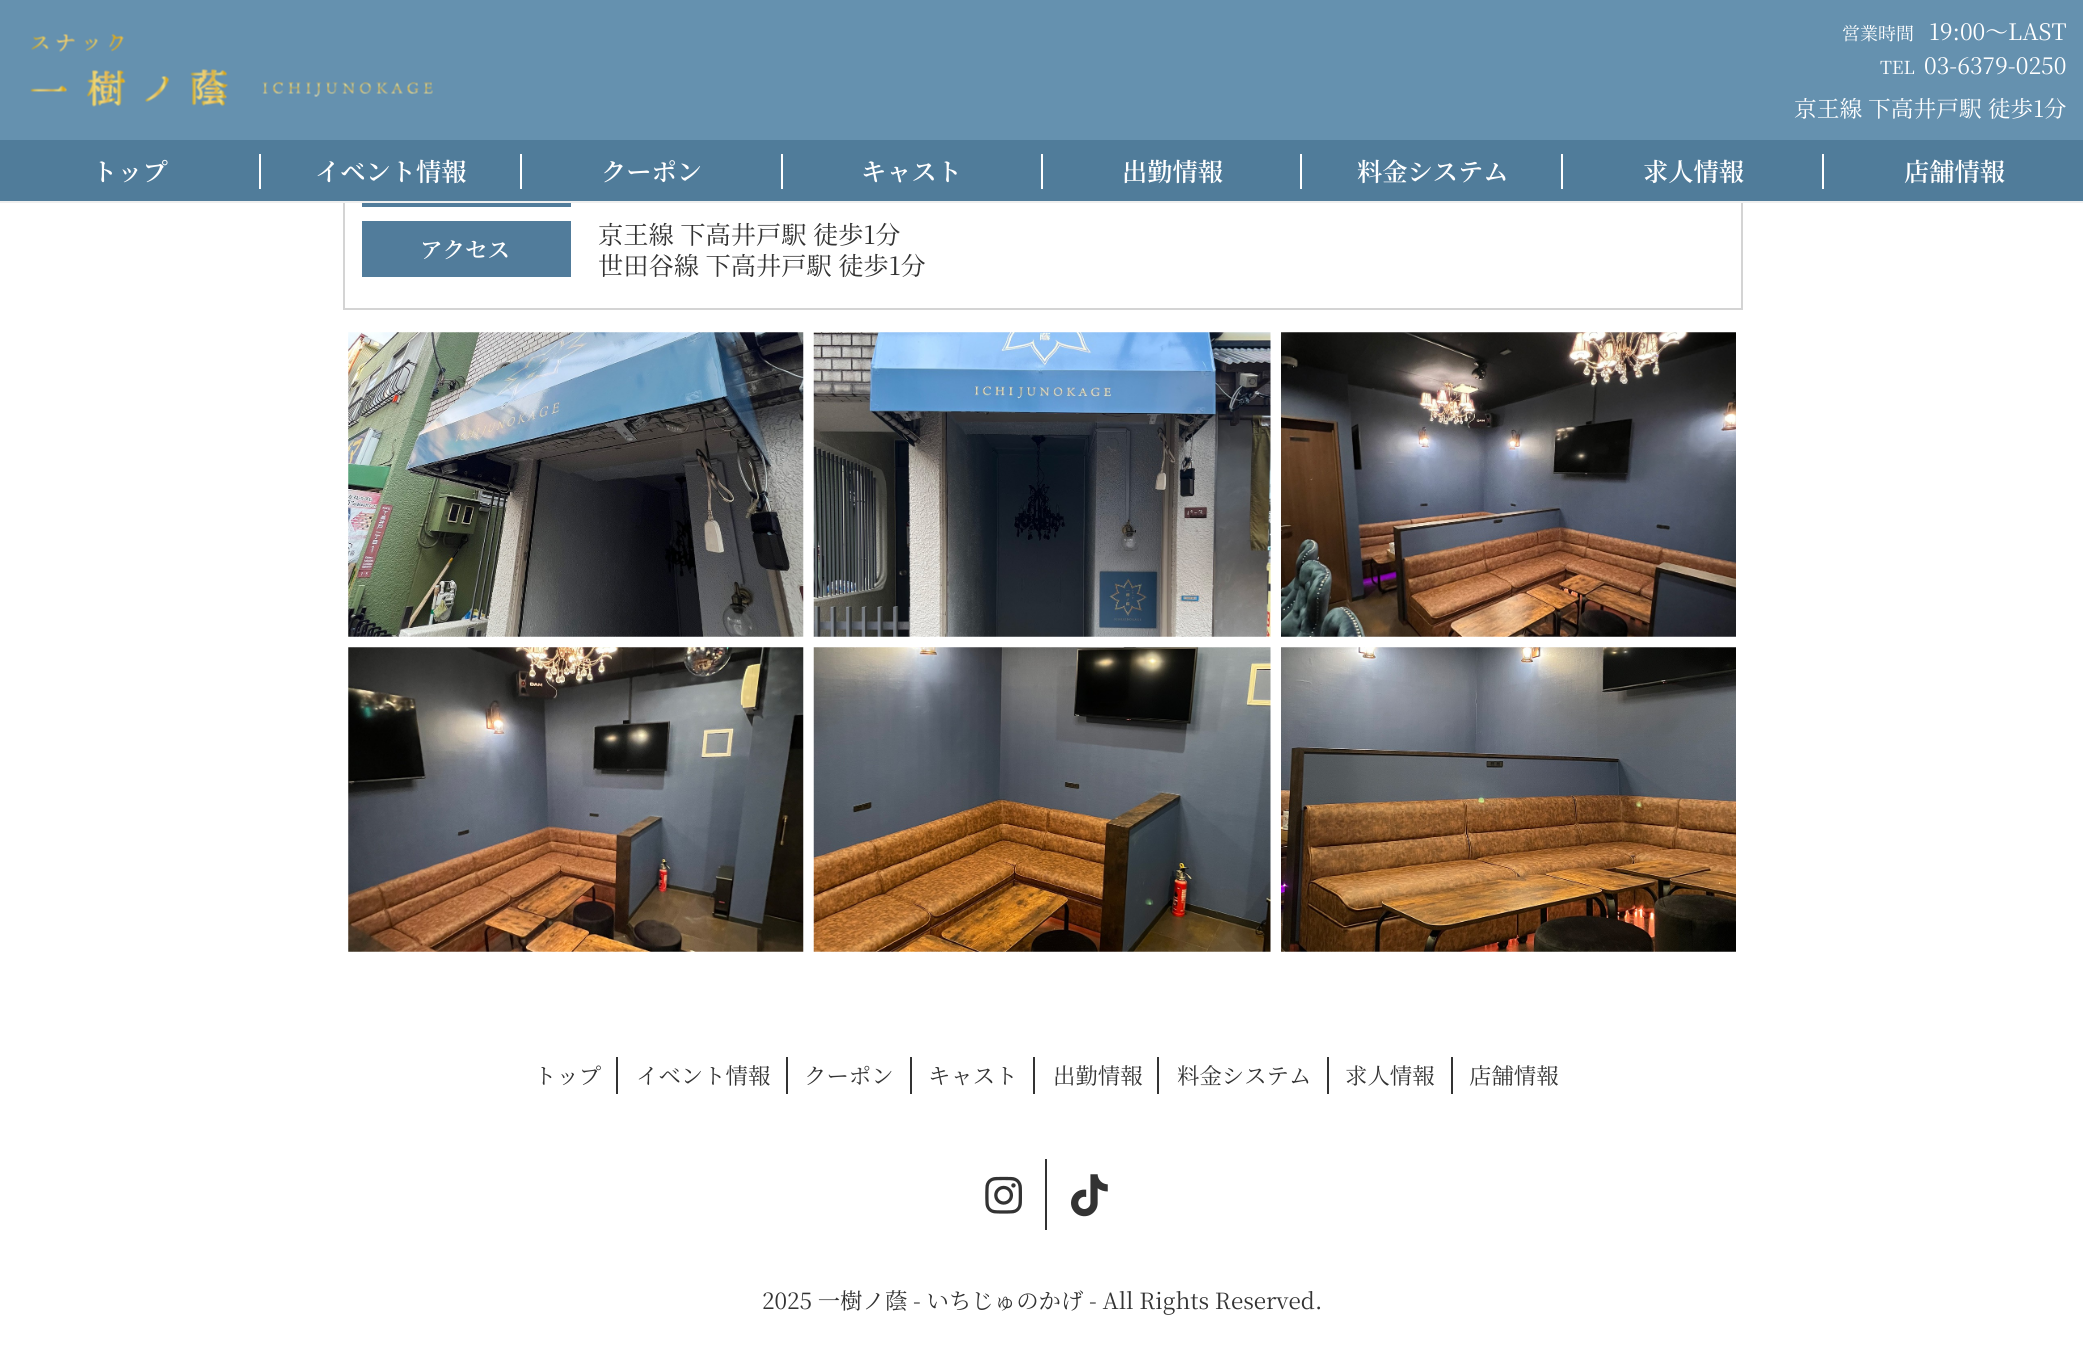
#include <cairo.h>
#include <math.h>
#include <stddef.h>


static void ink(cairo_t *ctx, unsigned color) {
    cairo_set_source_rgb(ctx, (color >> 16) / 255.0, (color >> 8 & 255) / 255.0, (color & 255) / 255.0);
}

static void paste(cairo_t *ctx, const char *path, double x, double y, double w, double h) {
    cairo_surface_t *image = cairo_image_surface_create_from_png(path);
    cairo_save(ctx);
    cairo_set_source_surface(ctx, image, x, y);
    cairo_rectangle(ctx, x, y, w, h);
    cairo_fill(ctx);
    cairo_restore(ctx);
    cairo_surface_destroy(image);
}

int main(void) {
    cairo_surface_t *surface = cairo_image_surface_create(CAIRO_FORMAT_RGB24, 2083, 1347);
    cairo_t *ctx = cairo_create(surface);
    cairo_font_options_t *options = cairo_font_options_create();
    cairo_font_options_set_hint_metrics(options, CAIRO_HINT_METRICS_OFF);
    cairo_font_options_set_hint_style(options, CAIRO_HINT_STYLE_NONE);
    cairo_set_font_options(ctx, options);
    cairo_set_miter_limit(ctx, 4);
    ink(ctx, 0xFFFFFF);
    cairo_paint(ctx);
    cairo_rectangle(ctx, 344, -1, 1398, 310);
    ink(ctx, 0xD4D4D4);
    cairo_stroke(ctx);
    ink(ctx, 0x6591AF);
    cairo_rectangle(ctx, 0, 0, 2083, 140);
    cairo_fill(ctx);
    ink(ctx, 0xEFEFEF);
    cairo_rectangle(ctx, 0, 201, 2083, 2);
    cairo_fill(ctx);
    paste(ctx, "media/1.png", 30, 34, 403, 73);
    cairo_select_font_face(ctx, "Noto Serif JP", CAIRO_FONT_SLANT_NORMAL, CAIRO_FONT_WEIGHT_NORMAL);
    cairo_set_font_size(ctx, 18);
    ink(ctx, 0xFFFFFF);
    cairo_move_to(ctx, 1842, 40);
    cairo_show_text(ctx, "営業時間");
    cairo_set_font_size(ctx, 22.75);
    cairo_move_to(ctx, 1929, 40);
    cairo_show_text(ctx, "19:00～LAST");
    cairo_set_font_size(ctx, 18);
    cairo_move_to(ctx, 1880, 74);
    cairo_show_text(ctx, "TEL");
    cairo_set_font_size(ctx, 22.75);
    cairo_move_to(ctx, 1924, 74);
    cairo_show_text(ctx, "03-6379-0250");
    cairo_move_to(ctx, 1794, 117);
    cairo_show_text(ctx, "京王線 下高井戸駅 徒歩1分");
    ink(ctx, 0x507C9A);
    cairo_rectangle(ctx, 0, 140, 2083, 61);
    cairo_fill(ctx);
    cairo_select_font_face(ctx, "Noto Serif JP SemiBold", CAIRO_FONT_SLANT_NORMAL, CAIRO_FONT_WEIGHT_NORMAL);
    cairo_set_font_size(ctx, 25.25);
    ink(ctx, 0xFFFFFF);
    cairo_move_to(ctx, 92, 181);
    cairo_show_text(ctx, "トップ");
    cairo_rectangle(ctx, 259, 154, 2, 35);
    cairo_fill(ctx);
    cairo_move_to(ctx, 315, 181);
    cairo_show_text(ctx, "イベント情報");
    cairo_rectangle(ctx, 520, 154, 2, 35);
    cairo_fill(ctx);
    cairo_move_to(ctx, 601, 181);
    cairo_show_text(ctx, "クーポン");
    cairo_rectangle(ctx, 781, 154, 2, 35);
    cairo_fill(ctx);
    cairo_move_to(ctx, 861, 181);
    cairo_show_text(ctx, "キャスト");
    cairo_rectangle(ctx, 1041, 154, 2, 35);
    cairo_fill(ctx);
    cairo_move_to(ctx, 1122, 181);
    cairo_show_text(ctx, "出勤情報");
    cairo_rectangle(ctx, 1300, 154, 2, 35);
    cairo_fill(ctx);
    cairo_move_to(ctx, 1357, 181);
    cairo_show_text(ctx, "料金システム");
    cairo_rectangle(ctx, 1561, 154, 2, 35);
    cairo_fill(ctx);
    cairo_move_to(ctx, 1643, 181);
    cairo_show_text(ctx, "求人情報");
    cairo_rectangle(ctx, 1822, 154, 2, 35);
    cairo_fill(ctx);
    cairo_move_to(ctx, 1904, 181);
    cairo_show_text(ctx, "店舗情報");
    ink(ctx, 0x517C9B);
    cairo_rectangle(ctx, 362, 203, 209, 4);
    cairo_fill(ctx);
    cairo_rectangle(ctx, 362, 221, 209, 56);
    cairo_fill(ctx);
    cairo_set_font_size(ctx, 22.5);
    ink(ctx, 0xFFFFFF);
    cairo_move_to(ctx, 420, 258);
    cairo_show_text(ctx, "アクセス");
    cairo_select_font_face(ctx, "Noto Serif JP", CAIRO_FONT_SLANT_NORMAL, CAIRO_FONT_WEIGHT_NORMAL);
    cairo_set_font_size(ctx, 25.25);
    ink(ctx, 0x333333);
    cairo_move_to(ctx, 598, 244);
    cairo_show_text(ctx, "京王線 下高井戸駅 徒歩1分");
    cairo_move_to(ctx, 598, 275);
    cairo_show_text(ctx, "世田谷線 下高井戸駅 徒歩1分");
    paste(ctx, "media/2.png", 348, 332, 456, 305);
    paste(ctx, "media/3.png", 813, 332, 458, 305);
    paste(ctx, "media/4.png", 1281, 332, 455, 305);
    paste(ctx, "media/5.png", 348, 647, 456, 305);
    paste(ctx, "media/6.png", 813, 647, 458, 305);
    paste(ctx, "media/7.png", 1281, 647, 455, 305);
    cairo_set_font_size(ctx, 22.4);
    cairo_move_to(ctx, 534, 1084);
    cairo_show_text(ctx, "トップ");
    cairo_rectangle(ctx, 616, 1057, 2, 37);
    cairo_fill(ctx);
    cairo_move_to(ctx, 636, 1084);
    cairo_show_text(ctx, "イベント情報");
    cairo_rectangle(ctx, 786, 1057, 2, 37);
    cairo_fill(ctx);
    cairo_move_to(ctx, 804, 1084);
    cairo_show_text(ctx, "クーポン");
    cairo_rectangle(ctx, 910, 1057, 2, 37);
    cairo_fill(ctx);
    cairo_move_to(ctx, 928, 1084);
    cairo_show_text(ctx, "キャスト");
    cairo_rectangle(ctx, 1033, 1057, 2, 37);
    cairo_fill(ctx);
    cairo_move_to(ctx, 1053, 1084);
    cairo_show_text(ctx, "出勤情報");
    cairo_rectangle(ctx, 1157, 1057, 2, 37);
    cairo_fill(ctx);
    cairo_move_to(ctx, 1177, 1084);
    cairo_show_text(ctx, "料金システム");
    cairo_rectangle(ctx, 1327, 1057, 2, 37);
    cairo_fill(ctx);
    cairo_move_to(ctx, 1345, 1084);
    cairo_show_text(ctx, "求人情報");
    cairo_rectangle(ctx, 1451, 1057, 2, 37);
    cairo_fill(ctx);
    cairo_move_to(ctx, 1469, 1084);
    cairo_show_text(ctx, "店舗情報");
    paste(ctx, "media/8.png", 985, 1176, 37, 38);
    cairo_rectangle(ctx, 1045, 1159, 2, 71);
    cairo_fill(ctx);
    paste(ctx, "media/9.png", 1071, 1174, 37, 43);
    cairo_move_to(ctx, 762, 1309);
    cairo_show_text(ctx, "2025 一樹ノ蔭 - いちじゅのかげ - All Rights Reserved.");
    cairo_surface_write_to_png(surface, "image.png");
    cairo_font_options_destroy(options);
    cairo_destroy(ctx);
    cairo_surface_destroy(surface);
    return 0;
}
